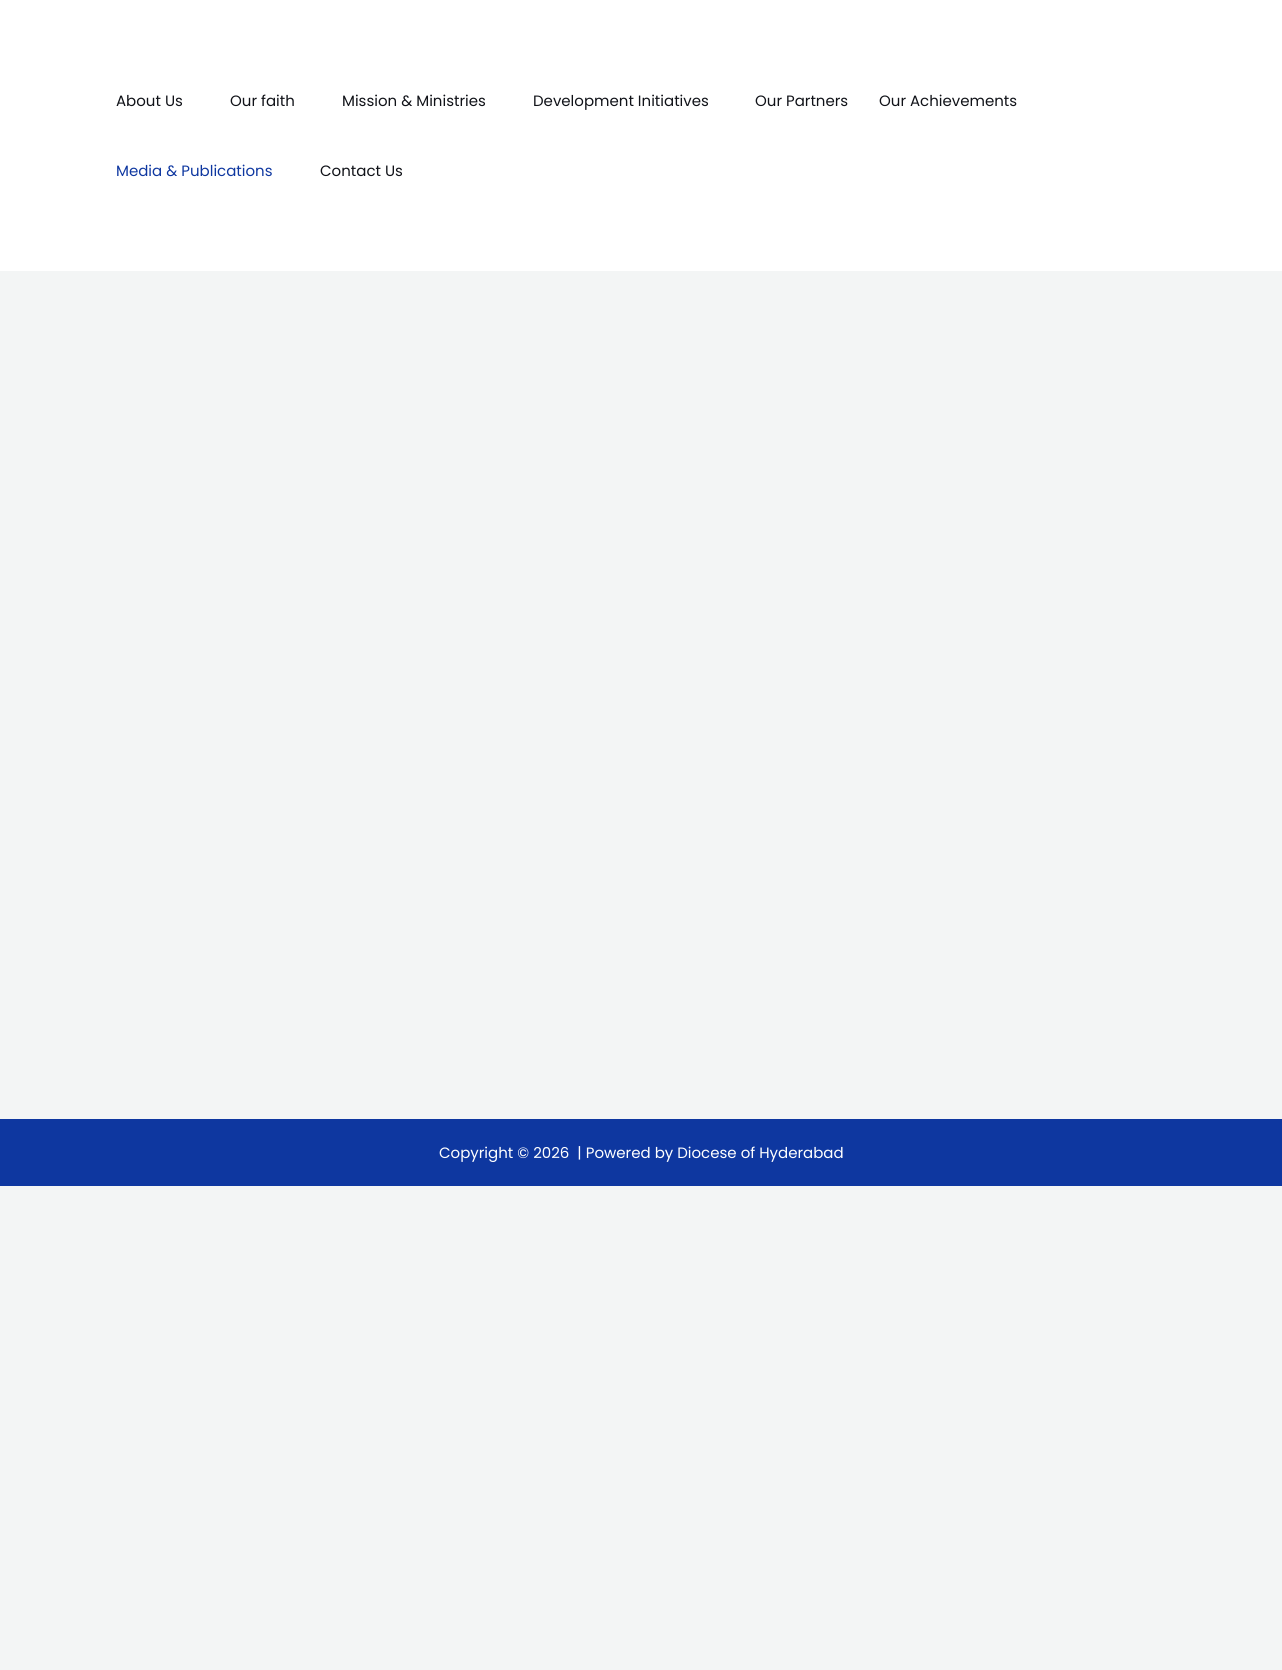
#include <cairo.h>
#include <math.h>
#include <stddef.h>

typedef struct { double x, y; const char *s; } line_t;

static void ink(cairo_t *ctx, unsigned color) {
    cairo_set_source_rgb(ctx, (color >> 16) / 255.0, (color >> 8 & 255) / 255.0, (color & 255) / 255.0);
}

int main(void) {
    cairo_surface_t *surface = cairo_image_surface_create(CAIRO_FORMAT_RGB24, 1282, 1670);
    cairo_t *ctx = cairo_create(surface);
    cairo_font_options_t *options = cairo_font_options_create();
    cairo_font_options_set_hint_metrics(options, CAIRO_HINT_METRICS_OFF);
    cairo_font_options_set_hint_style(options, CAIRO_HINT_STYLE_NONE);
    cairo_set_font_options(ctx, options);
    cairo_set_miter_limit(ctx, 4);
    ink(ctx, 0xF3F5F5);
    cairo_paint(ctx);
    ink(ctx, 0xFFFFFF);
    cairo_rectangle(ctx, 0, 0, 1282, 271);
    cairo_fill(ctx);
    cairo_select_font_face(ctx, "Poppins", CAIRO_FONT_SLANT_NORMAL, CAIRO_FONT_WEIGHT_NORMAL);
    cairo_set_font_size(ctx, 15);
    ink(ctx, 0x101218);
    {
        static const line_t items[] = {
            {116, 106, "About Us"},
            {230, 106, "Our faith"},
            {342, 106, "Mission & Ministries"},
            {533, 106, "Development Initiatives"},
            {755, 106, "Our Partners"},
            {879, 106, "Our Achievements"},
        };
        for (size_t i = 0; i < sizeof items / sizeof *items; i++) {
            cairo_move_to(ctx, items[i].x, items[i].y);
            cairo_show_text(ctx, items[i].s);
        }
    }
    ink(ctx, 0x0E37A0);
    cairo_move_to(ctx, 116, 176);
    cairo_show_text(ctx, "Media & Publications");
    ink(ctx, 0x101218);
    cairo_move_to(ctx, 320, 176);
    cairo_show_text(ctx, "Contact Us");
    ink(ctx, 0x0E37A0);
    cairo_rectangle(ctx, 0, 1119, 1282, 67);
    cairo_fill(ctx);
    ink(ctx, 0xFFFFFF);
    cairo_move_to(ctx, 439, 1158);
    cairo_show_text(ctx, "Copyright © 2026  | Powered by Diocese of Hyderabad");
    cairo_surface_write_to_png(surface, "image.png");
    cairo_font_options_destroy(options);
    cairo_destroy(ctx);
    cairo_surface_destroy(surface);
    return 0;
}
